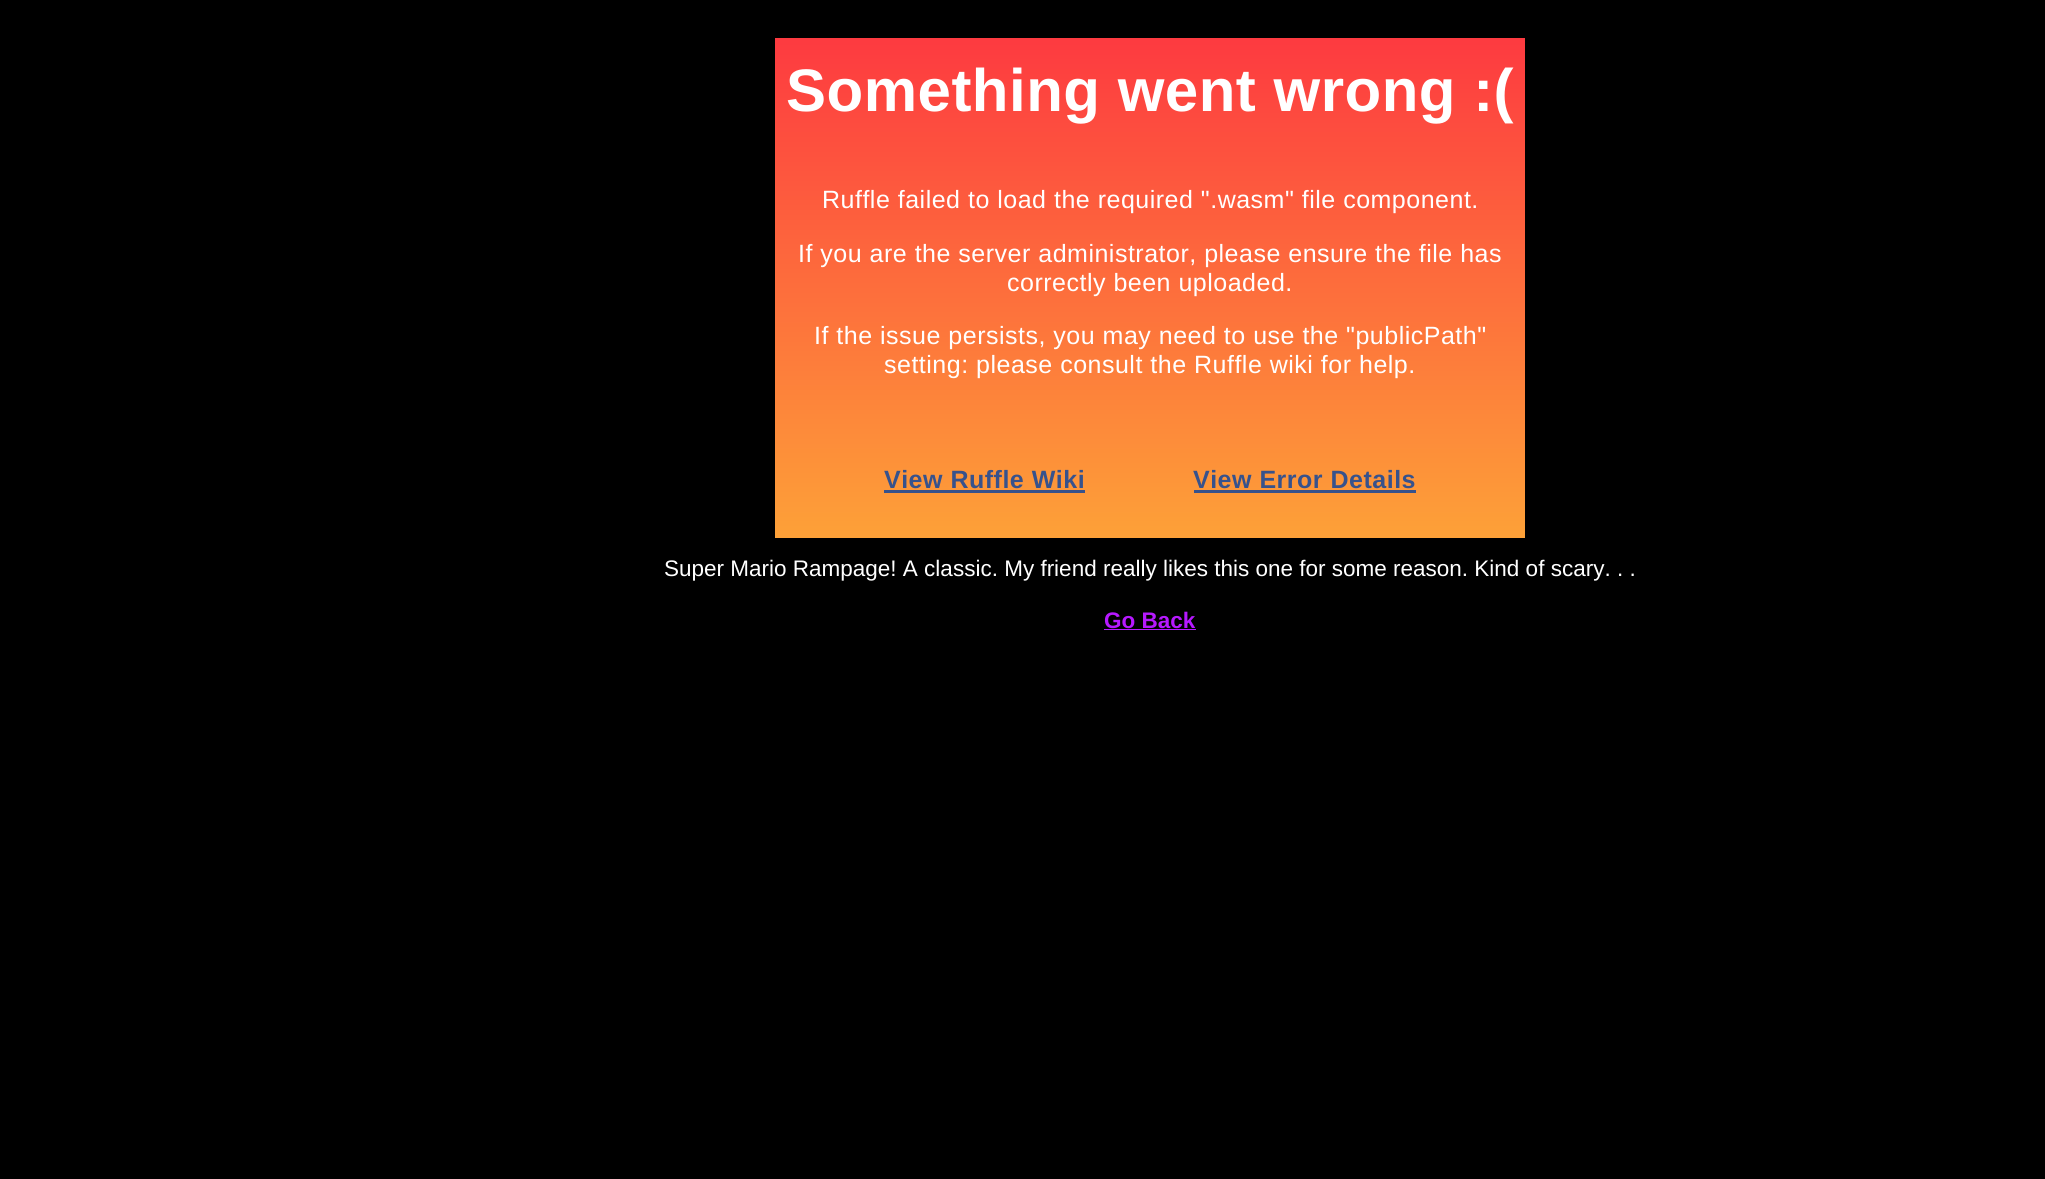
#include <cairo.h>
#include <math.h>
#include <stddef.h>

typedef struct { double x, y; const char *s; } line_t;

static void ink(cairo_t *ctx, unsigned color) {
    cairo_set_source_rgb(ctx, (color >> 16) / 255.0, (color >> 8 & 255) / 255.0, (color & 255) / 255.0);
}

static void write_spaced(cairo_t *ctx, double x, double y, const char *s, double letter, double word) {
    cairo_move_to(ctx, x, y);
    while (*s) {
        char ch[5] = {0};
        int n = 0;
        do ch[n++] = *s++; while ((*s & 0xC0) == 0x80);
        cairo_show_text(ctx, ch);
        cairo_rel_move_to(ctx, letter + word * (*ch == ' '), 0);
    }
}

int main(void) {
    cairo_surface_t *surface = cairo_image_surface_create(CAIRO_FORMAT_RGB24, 2045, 1179);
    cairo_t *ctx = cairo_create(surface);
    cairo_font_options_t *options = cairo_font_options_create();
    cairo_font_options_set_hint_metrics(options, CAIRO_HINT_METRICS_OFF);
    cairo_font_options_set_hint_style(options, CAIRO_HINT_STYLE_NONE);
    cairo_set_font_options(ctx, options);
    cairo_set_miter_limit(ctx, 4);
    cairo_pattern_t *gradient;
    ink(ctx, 0x000000);
    cairo_paint(ctx);
    gradient = cairo_pattern_create_linear(1150, 37, 1150, 538);
    cairo_pattern_add_color_stop_rgba(gradient, 0, 0.992, 0.227, 0.251, 1);
    cairo_pattern_add_color_stop_rgba(gradient, 1, 0.992, 0.631, 0.22, 1);
    cairo_set_source(ctx, gradient);
    cairo_pattern_destroy(gradient);
    cairo_rectangle(ctx, 775, 38, 750, 500);
    cairo_fill(ctx);
    cairo_select_font_face(ctx, "Liberation Sans", CAIRO_FONT_SLANT_NORMAL, CAIRO_FONT_WEIGHT_BOLD);
    cairo_set_font_size(ctx, 60);
    ink(ctx, 0xFFFFFF);
    write_spaced(ctx, 786, 111, "Something went wrong :(", 0.5, 0);
    cairo_select_font_face(ctx, "Liberation Sans", CAIRO_FONT_SLANT_NORMAL, CAIRO_FONT_WEIGHT_NORMAL);
    cairo_set_font_size(ctx, 25);
    {
        static const line_t items[] = {
            {822, 208, "Ruffle failed to load the required \".wasm\" file component."},
            {798, 262, "If you are the server administrator, please ensure the file has"},
            {1007, 291, "correctly been uploaded."},
            {814, 344, "If the issue persists, you may need to use the \"publicPath\""},
            {884, 373, "setting: please consult the Ruffle wiki for help."},
        };
        for (size_t i = 0; i < sizeof items / sizeof *items; i++) {
            write_spaced(ctx, items[i].x, items[i].y, items[i].s, 0.5, 0);
        }
    }
    cairo_select_font_face(ctx, "Liberation Sans", CAIRO_FONT_SLANT_NORMAL, CAIRO_FONT_WEIGHT_BOLD);
    ink(ctx, 0x37528C);
    write_spaced(ctx, 884, 488, "View Ruffle Wiki", 0.5, 0);
    cairo_rectangle(ctx, 884, 490, 201, 3);
    cairo_fill(ctx);
    write_spaced(ctx, 1193, 488, "View Error Details", 0.5, 0);
    cairo_rectangle(ctx, 1194, 490, 222, 3);
    cairo_fill(ctx);
    cairo_select_font_face(ctx, "Liberation Sans", CAIRO_FONT_SLANT_NORMAL, CAIRO_FONT_WEIGHT_NORMAL);
    cairo_set_font_size(ctx, 22.5);
    ink(ctx, 0xFFFFFF);
    cairo_move_to(ctx, 664, 576);
    cairo_show_text(ctx, "Super Mario Rampage! A classic. My friend really likes this one for some reason. Kind of scary. . .");
    cairo_select_font_face(ctx, "Liberation Sans", CAIRO_FONT_SLANT_NORMAL, CAIRO_FONT_WEIGHT_BOLD);
    ink(ctx, 0xB619FF);
    cairo_move_to(ctx, 1104, 628);
    cairo_show_text(ctx, "Go Back");
    cairo_rectangle(ctx, 1104, 629, 92, 1);
    cairo_fill(ctx);
    cairo_surface_write_to_png(surface, "image.png");
    cairo_font_options_destroy(options);
    cairo_destroy(ctx);
    cairo_surface_destroy(surface);
    return 0;
}
